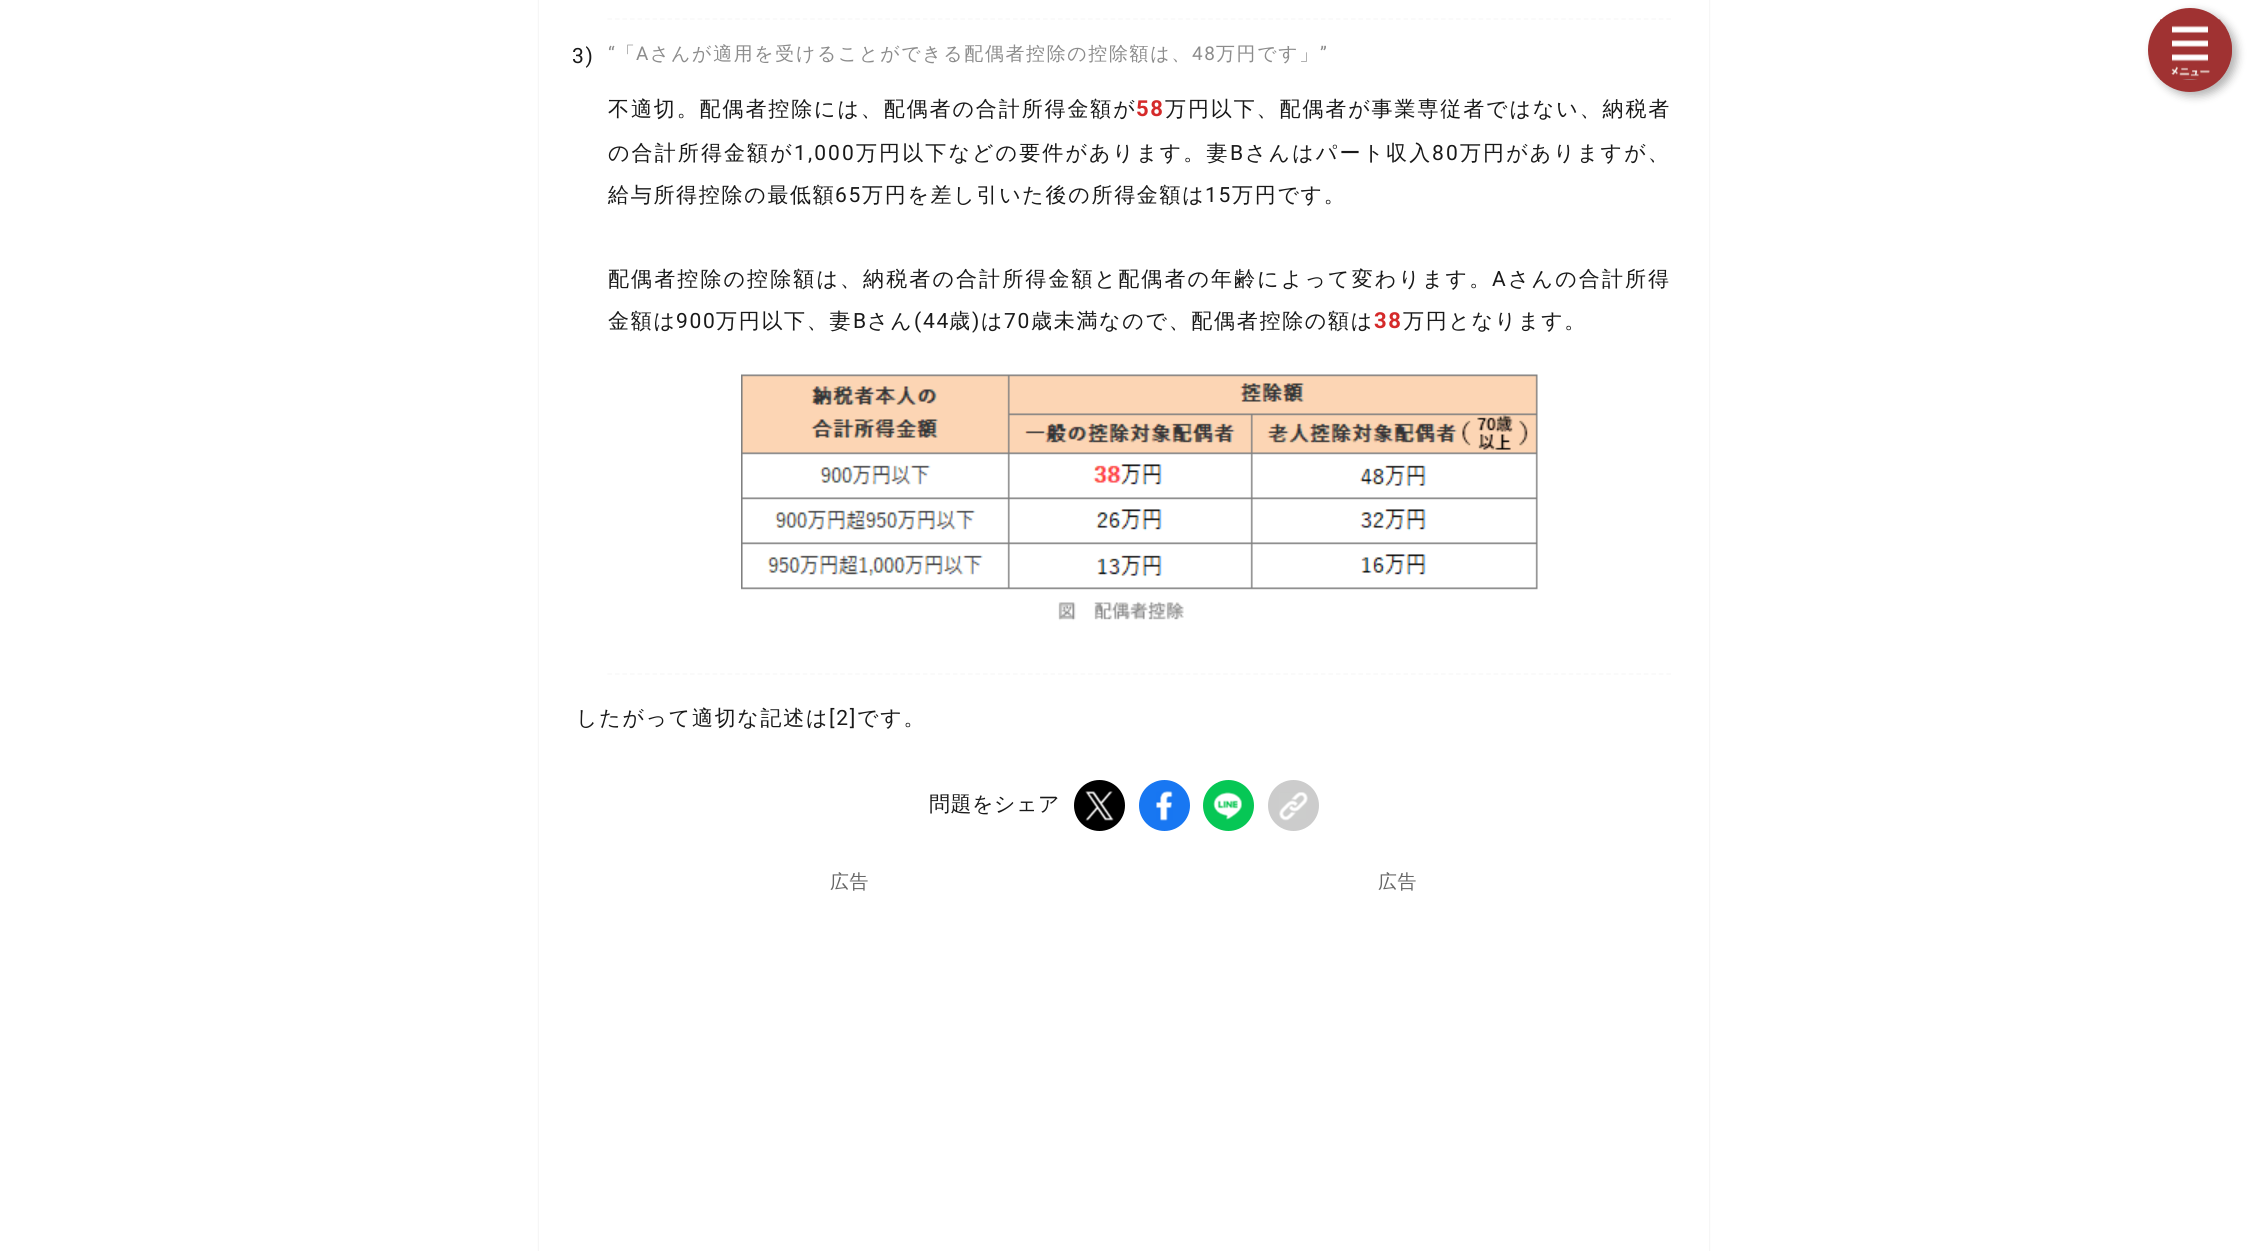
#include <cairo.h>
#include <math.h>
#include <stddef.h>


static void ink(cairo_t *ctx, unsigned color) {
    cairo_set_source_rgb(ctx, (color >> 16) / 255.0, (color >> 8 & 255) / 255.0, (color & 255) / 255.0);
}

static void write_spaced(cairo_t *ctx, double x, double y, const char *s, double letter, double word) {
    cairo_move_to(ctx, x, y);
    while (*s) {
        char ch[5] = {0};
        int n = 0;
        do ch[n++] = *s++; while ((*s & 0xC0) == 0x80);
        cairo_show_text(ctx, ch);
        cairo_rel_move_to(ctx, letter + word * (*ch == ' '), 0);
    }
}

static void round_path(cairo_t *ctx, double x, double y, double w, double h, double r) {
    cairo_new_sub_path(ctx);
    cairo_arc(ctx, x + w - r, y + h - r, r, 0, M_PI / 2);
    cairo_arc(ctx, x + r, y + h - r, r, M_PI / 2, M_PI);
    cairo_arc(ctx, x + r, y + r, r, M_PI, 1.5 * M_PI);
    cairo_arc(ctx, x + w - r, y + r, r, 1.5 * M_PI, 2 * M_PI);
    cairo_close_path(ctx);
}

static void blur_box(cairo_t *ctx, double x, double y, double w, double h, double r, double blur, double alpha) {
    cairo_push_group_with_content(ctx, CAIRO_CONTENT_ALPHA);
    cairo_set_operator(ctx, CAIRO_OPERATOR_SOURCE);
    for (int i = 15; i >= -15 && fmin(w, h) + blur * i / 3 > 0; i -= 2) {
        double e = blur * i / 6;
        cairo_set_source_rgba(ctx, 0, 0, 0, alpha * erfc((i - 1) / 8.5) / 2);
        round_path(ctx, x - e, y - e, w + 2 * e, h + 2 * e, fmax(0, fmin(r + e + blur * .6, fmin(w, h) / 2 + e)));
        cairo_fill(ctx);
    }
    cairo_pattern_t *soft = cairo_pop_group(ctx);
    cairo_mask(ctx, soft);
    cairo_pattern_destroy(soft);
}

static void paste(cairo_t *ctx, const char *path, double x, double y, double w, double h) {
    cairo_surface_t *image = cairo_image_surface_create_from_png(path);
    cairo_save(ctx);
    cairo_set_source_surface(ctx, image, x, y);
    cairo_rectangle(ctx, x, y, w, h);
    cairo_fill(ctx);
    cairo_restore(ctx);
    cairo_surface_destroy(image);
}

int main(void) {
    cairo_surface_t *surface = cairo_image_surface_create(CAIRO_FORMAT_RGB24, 2247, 1251);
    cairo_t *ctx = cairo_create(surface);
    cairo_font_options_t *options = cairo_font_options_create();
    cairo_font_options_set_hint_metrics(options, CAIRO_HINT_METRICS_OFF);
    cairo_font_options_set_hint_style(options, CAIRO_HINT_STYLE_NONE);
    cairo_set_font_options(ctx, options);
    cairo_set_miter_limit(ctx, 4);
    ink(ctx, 0xFFFFFF);
    cairo_paint(ctx);
    ink(ctx, 0x000000);
    blur_box(ctx, 539, -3, 1170, 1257, 0, 1, 0.1);
    ink(ctx, 0xFFFFFF);
    cairo_rectangle(ctx, 539, 0, 1170, 1251);
    cairo_fill(ctx);
    cairo_new_path(ctx);
    cairo_move_to(ctx, 607.5, 19);
    cairo_line_to(ctx, 1671, 19);
    ink(ctx, 0xF8F8F8);
    cairo_set_line_width(ctx, 1.5);
    cairo_set_dash(ctx, (double[]){4.5, 3.01}, 2, 0);
    cairo_stroke(ctx);
    cairo_new_path(ctx);
    cairo_move_to(ctx, 607.5, 674);
    cairo_line_to(ctx, 1671, 674);
    cairo_stroke(ctx);
    cairo_select_font_face(ctx, "Roboto", CAIRO_FONT_SLANT_NORMAL, CAIRO_FONT_WEIGHT_NORMAL);
    cairo_set_font_size(ctx, 21);
    ink(ctx, 0x191919);
    write_spaced(ctx, 572, 63, "3)", 1.7, 0);
    cairo_set_font_size(ctx, 18.9);
    ink(ctx, 0x8C8C8C);
    write_spaced(ctx, 608, 60, "“", 1.7, 0);
    cairo_select_font_face(ctx, "WenQuanYi Zen Hei Medium", CAIRO_FONT_SLANT_NORMAL, CAIRO_FONT_WEIGHT_NORMAL);
    write_spaced(ctx, 616, 60, "「", 1.7, 0);
    cairo_select_font_face(ctx, "Roboto", CAIRO_FONT_SLANT_NORMAL, CAIRO_FONT_WEIGHT_NORMAL);
    write_spaced(ctx, 636, 60, "A", 1.7, 0);
    cairo_select_font_face(ctx, "WenQuanYi Zen Hei Medium", CAIRO_FONT_SLANT_NORMAL, CAIRO_FONT_WEIGHT_NORMAL);
    write_spaced(ctx, 650, 60, "さんが適用を受けることができる配偶者控除の控除額は、", 1.7, 0);
    cairo_select_font_face(ctx, "Roboto", CAIRO_FONT_SLANT_NORMAL, CAIRO_FONT_WEIGHT_NORMAL);
    write_spaced(ctx, 1192, 60, "48", 1.7, 0);
    cairo_select_font_face(ctx, "WenQuanYi Zen Hei Medium", CAIRO_FONT_SLANT_NORMAL, CAIRO_FONT_WEIGHT_NORMAL);
    write_spaced(ctx, 1216, 60, "万円です」", 1.7, 0);
    cairo_select_font_face(ctx, "Roboto", CAIRO_FONT_SLANT_NORMAL, CAIRO_FONT_WEIGHT_NORMAL);
    write_spaced(ctx, 1320, 60, "”", 1.7, 0);
    cairo_select_font_face(ctx, "WenQuanYi Zen Hei Medium", CAIRO_FONT_SLANT_NORMAL, CAIRO_FONT_WEIGHT_NORMAL);
    cairo_set_font_size(ctx, 21);
    ink(ctx, 0x191919);
    write_spaced(ctx, 608, 116, "不適切。配偶者控除には、配偶者の合計所得金額が", 1.9, 0);
    cairo_select_font_face(ctx, "Roboto", CAIRO_FONT_SLANT_NORMAL, CAIRO_FONT_WEIGHT_BOLD);
    cairo_set_font_size(ctx, 22);
    ink(ctx, 0xD52A2A);
    write_spaced(ctx, 1136, 116, "58", 1.7, 0);
    cairo_select_font_face(ctx, "WenQuanYi Zen Hei Medium", CAIRO_FONT_SLANT_NORMAL, CAIRO_FONT_WEIGHT_NORMAL);
    cairo_set_font_size(ctx, 21);
    ink(ctx, 0x191919);
    write_spaced(ctx, 1165, 116, "万円以下、配偶者が事業専従者ではない、納税者", 1.9, 0);
    write_spaced(ctx, 608, 160, "の合計所得金額が", 2.1, 0);
    cairo_select_font_face(ctx, "Roboto", CAIRO_FONT_SLANT_NORMAL, CAIRO_FONT_WEIGHT_NORMAL);
    write_spaced(ctx, 794, 160, "1,000", 2.1, 0);
    cairo_select_font_face(ctx, "WenQuanYi Zen Hei Medium", CAIRO_FONT_SLANT_NORMAL, CAIRO_FONT_WEIGHT_NORMAL);
    write_spaced(ctx, 856, 160, "万円以下などの要件があります。妻", 2.1, 0);
    cairo_select_font_face(ctx, "Roboto", CAIRO_FONT_SLANT_NORMAL, CAIRO_FONT_WEIGHT_NORMAL);
    write_spaced(ctx, 1230, 160, "B", 2.1, 0);
    cairo_select_font_face(ctx, "WenQuanYi Zen Hei Medium", CAIRO_FONT_SLANT_NORMAL, CAIRO_FONT_WEIGHT_NORMAL);
    write_spaced(ctx, 1245, 160, "さんはパート収入", 2.1, 0);
    cairo_select_font_face(ctx, "Roboto", CAIRO_FONT_SLANT_NORMAL, CAIRO_FONT_WEIGHT_NORMAL);
    write_spaced(ctx, 1432, 160, "80", 2.1, 0);
    cairo_select_font_face(ctx, "WenQuanYi Zen Hei Medium", CAIRO_FONT_SLANT_NORMAL, CAIRO_FONT_WEIGHT_NORMAL);
    write_spaced(ctx, 1460, 160, "万円がありますが、", 2.1, 0);
    write_spaced(ctx, 608, 202, "給与所得控除の最低額", 1.7, 0);
    cairo_select_font_face(ctx, "Roboto", CAIRO_FONT_SLANT_NORMAL, CAIRO_FONT_WEIGHT_NORMAL);
    write_spaced(ctx, 835, 202, "65", 1.7, 0);
    cairo_select_font_face(ctx, "WenQuanYi Zen Hei Medium", CAIRO_FONT_SLANT_NORMAL, CAIRO_FONT_WEIGHT_NORMAL);
    write_spaced(ctx, 862, 202, "万円を差し引いた後の所得金額は", 1.7, 0);
    cairo_select_font_face(ctx, "Roboto", CAIRO_FONT_SLANT_NORMAL, CAIRO_FONT_WEIGHT_NORMAL);
    write_spaced(ctx, 1205, 202, "15", 1.7, 0);
    cairo_select_font_face(ctx, "WenQuanYi Zen Hei Medium", CAIRO_FONT_SLANT_NORMAL, CAIRO_FONT_WEIGHT_NORMAL);
    write_spaced(ctx, 1232, 202, "万円です。", 1.7, 0);
    write_spaced(ctx, 608, 286, "配偶者控除の控除額は、納税者の合計所得金額と配偶者の年齢によって変わります。", 2.1, 0);
    cairo_select_font_face(ctx, "Roboto", CAIRO_FONT_SLANT_NORMAL, CAIRO_FONT_WEIGHT_NORMAL);
    write_spaced(ctx, 1492, 286, "A", 2.1, 0);
    cairo_select_font_face(ctx, "WenQuanYi Zen Hei Medium", CAIRO_FONT_SLANT_NORMAL, CAIRO_FONT_WEIGHT_NORMAL);
    write_spaced(ctx, 1508, 286, "さんの合計所得", 2.1, 0);
    write_spaced(ctx, 608, 328, "金額は", 1.7, 0);
    cairo_select_font_face(ctx, "Roboto", CAIRO_FONT_SLANT_NORMAL, CAIRO_FONT_WEIGHT_NORMAL);
    write_spaced(ctx, 676, 328, "900", 1.7, 0);
    cairo_select_font_face(ctx, "WenQuanYi Zen Hei Medium", CAIRO_FONT_SLANT_NORMAL, CAIRO_FONT_WEIGHT_NORMAL);
    write_spaced(ctx, 716, 328, "万円以下、妻", 1.7, 0);
    cairo_select_font_face(ctx, "Roboto", CAIRO_FONT_SLANT_NORMAL, CAIRO_FONT_WEIGHT_NORMAL);
    write_spaced(ctx, 853, 328, "B", 1.7, 0);
    cairo_select_font_face(ctx, "WenQuanYi Zen Hei Medium", CAIRO_FONT_SLANT_NORMAL, CAIRO_FONT_WEIGHT_NORMAL);
    write_spaced(ctx, 867, 328, "さん", 1.7, 0);
    cairo_select_font_face(ctx, "Roboto", CAIRO_FONT_SLANT_NORMAL, CAIRO_FONT_WEIGHT_NORMAL);
    write_spaced(ctx, 914, 328, "(44", 1.7, 0);
    cairo_select_font_face(ctx, "WenQuanYi Zen Hei Medium", CAIRO_FONT_SLANT_NORMAL, CAIRO_FONT_WEIGHT_NORMAL);
    write_spaced(ctx, 949, 328, "歳", 1.7, 0);
    cairo_select_font_face(ctx, "Roboto", CAIRO_FONT_SLANT_NORMAL, CAIRO_FONT_WEIGHT_NORMAL);
    write_spaced(ctx, 972, 328, ")", 1.7, 0);
    cairo_select_font_face(ctx, "WenQuanYi Zen Hei Medium", CAIRO_FONT_SLANT_NORMAL, CAIRO_FONT_WEIGHT_NORMAL);
    write_spaced(ctx, 981, 328, "は", 1.7, 0);
    cairo_select_font_face(ctx, "Roboto", CAIRO_FONT_SLANT_NORMAL, CAIRO_FONT_WEIGHT_NORMAL);
    write_spaced(ctx, 1004, 328, "70", 1.7, 0);
    cairo_select_font_face(ctx, "WenQuanYi Zen Hei Medium", CAIRO_FONT_SLANT_NORMAL, CAIRO_FONT_WEIGHT_NORMAL);
    write_spaced(ctx, 1031, 328, "歳未満なので、配偶者控除の額は", 1.7, 0);
    cairo_select_font_face(ctx, "Roboto", CAIRO_FONT_SLANT_NORMAL, CAIRO_FONT_WEIGHT_BOLD);
    cairo_set_font_size(ctx, 22);
    ink(ctx, 0xD52A2A);
    write_spaced(ctx, 1374, 328, "38", 1.7, 0);
    cairo_select_font_face(ctx, "WenQuanYi Zen Hei Medium", CAIRO_FONT_SLANT_NORMAL, CAIRO_FONT_WEIGHT_NORMAL);
    cairo_set_font_size(ctx, 21);
    ink(ctx, 0x191919);
    write_spaced(ctx, 1403, 328, "万円となります。", 1.7, 0);
    paste(ctx, "media/1.png", 741, 374, 797, 247);
    write_spaced(ctx, 576, 725, "したがって適切な記述は", 1.7, 0);
    cairo_select_font_face(ctx, "Roboto", CAIRO_FONT_SLANT_NORMAL, CAIRO_FONT_WEIGHT_NORMAL);
    write_spaced(ctx, 829, 725, "[2]", 1.7, 0);
    cairo_select_font_face(ctx, "WenQuanYi Zen Hei Medium", CAIRO_FONT_SLANT_NORMAL, CAIRO_FONT_WEIGHT_NORMAL);
    write_spaced(ctx, 857, 725, "です。", 1.7, 0);
    write_spaced(ctx, 929, 811, "問題をシェア", 0.5, 0);
    ink(ctx, 0x000000);
    cairo_new_path(ctx);
    cairo_arc(ctx, 1099.5, 805.5, 25.5, 0, 2 * M_PI);
    cairo_fill(ctx);
    paste(ctx, "media/2.png", 1085, 791, 29, 30);
    ink(ctx, 0x1877F2);
    cairo_arc(ctx, 1164.5, 805.5, 25.5, 0, 2 * M_PI);
    cairo_fill(ctx);
    paste(ctx, "media/3.png", 1156, 791, 17, 30);
    ink(ctx, 0x06C755);
    cairo_arc(ctx, 1228.5, 805.5, 25.5, 0, 2 * M_PI);
    cairo_fill(ctx);
    paste(ctx, "media/4.png", 1213, 792, 29, 28);
    ink(ctx, 0xCCCCCC);
    cairo_arc(ctx, 1293.5, 805.5, 25.5, 0, 2 * M_PI);
    cairo_fill(ctx);
    paste(ctx, "media/5.png", 1279, 792, 29, 29);
    cairo_set_font_size(ctx, 18.9);
    ink(ctx, 0x666666);
    write_spaced(ctx, 830, 888, "広告", 0.5, 0);
    write_spaced(ctx, 1378, 888, "広告", 0.5, 0);
    ink(ctx, 0x000000);
    blur_box(ctx, 2153, 12, 84, 84, 42, 4.5, 0.3);
    paste(ctx, "media/6.png", 2160, 19, 72, 61);
    cairo_arc(ctx, 2190, 50, 36, 0, 2 * M_PI);
    ink(ctx, 0xA03232);
    cairo_set_line_width(ctx, 12);
    cairo_set_dash(ctx, NULL, 0, 0);
    cairo_stroke(ctx);
    cairo_surface_write_to_png(surface, "image.png");
    cairo_font_options_destroy(options);
    cairo_destroy(ctx);
    cairo_surface_destroy(surface);
    return 0;
}
